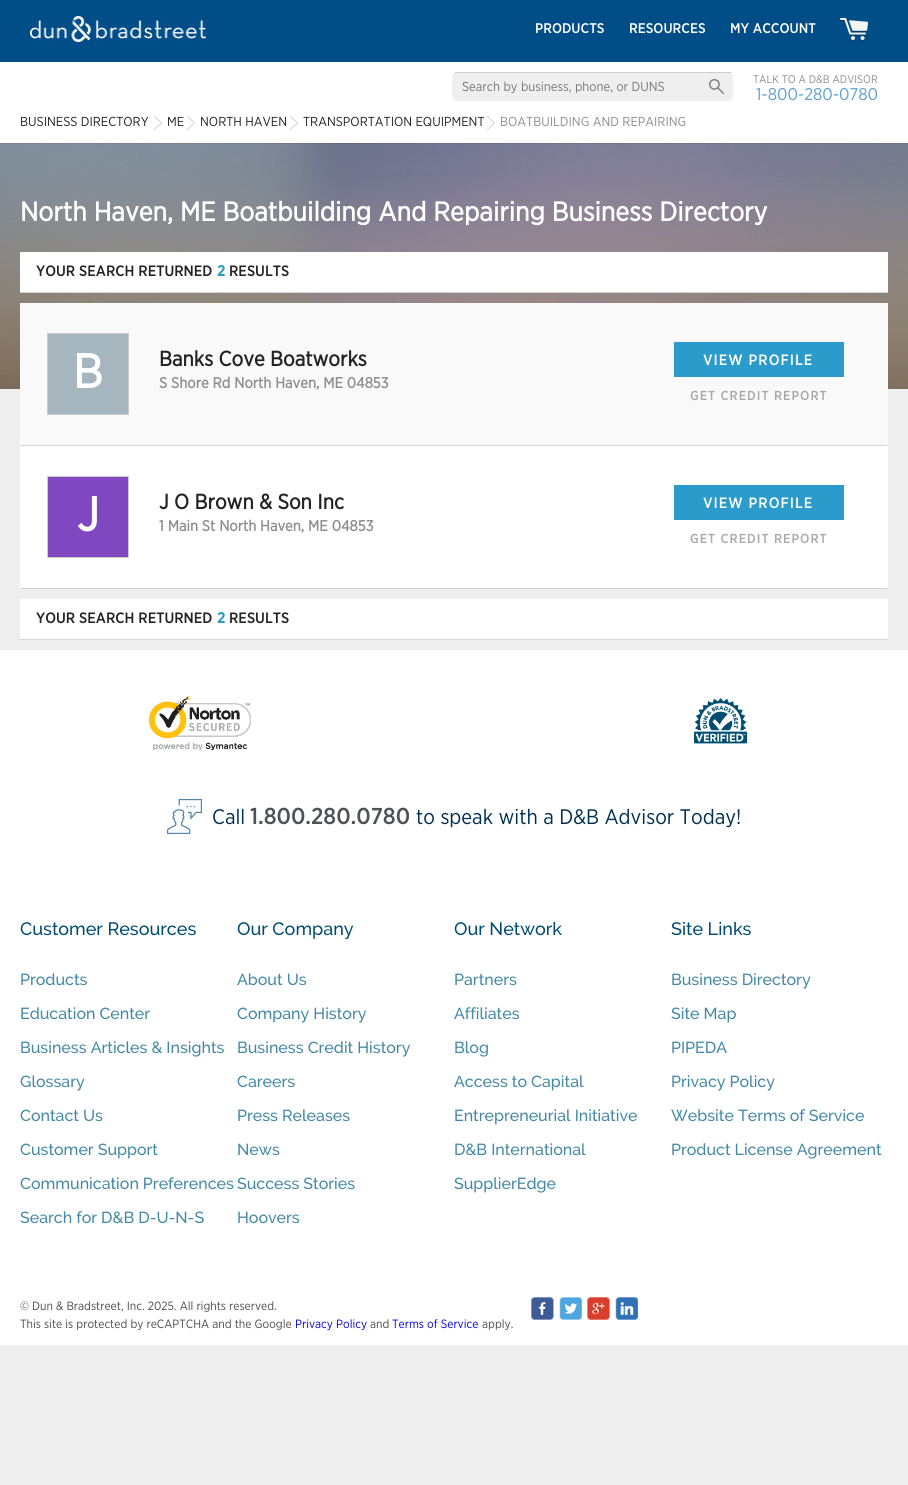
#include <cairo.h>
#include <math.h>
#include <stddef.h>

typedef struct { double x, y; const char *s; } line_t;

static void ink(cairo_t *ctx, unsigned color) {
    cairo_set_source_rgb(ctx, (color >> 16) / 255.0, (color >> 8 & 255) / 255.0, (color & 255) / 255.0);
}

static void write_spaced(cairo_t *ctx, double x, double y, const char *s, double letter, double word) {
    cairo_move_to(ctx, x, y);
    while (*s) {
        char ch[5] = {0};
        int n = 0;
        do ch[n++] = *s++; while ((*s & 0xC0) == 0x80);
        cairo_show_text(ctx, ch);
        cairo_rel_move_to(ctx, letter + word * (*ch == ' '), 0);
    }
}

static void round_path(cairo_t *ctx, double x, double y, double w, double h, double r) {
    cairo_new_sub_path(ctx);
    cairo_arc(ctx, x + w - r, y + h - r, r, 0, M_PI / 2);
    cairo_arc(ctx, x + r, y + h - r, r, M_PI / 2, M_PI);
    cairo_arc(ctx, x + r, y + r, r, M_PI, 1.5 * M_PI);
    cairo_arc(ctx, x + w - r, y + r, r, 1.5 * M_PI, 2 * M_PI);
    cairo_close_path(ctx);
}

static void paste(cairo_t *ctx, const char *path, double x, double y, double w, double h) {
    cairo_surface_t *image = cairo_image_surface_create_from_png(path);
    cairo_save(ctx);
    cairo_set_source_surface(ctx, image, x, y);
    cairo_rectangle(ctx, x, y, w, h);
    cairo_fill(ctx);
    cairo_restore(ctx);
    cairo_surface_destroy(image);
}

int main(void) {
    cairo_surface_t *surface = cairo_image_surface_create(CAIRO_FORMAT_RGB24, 908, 1485);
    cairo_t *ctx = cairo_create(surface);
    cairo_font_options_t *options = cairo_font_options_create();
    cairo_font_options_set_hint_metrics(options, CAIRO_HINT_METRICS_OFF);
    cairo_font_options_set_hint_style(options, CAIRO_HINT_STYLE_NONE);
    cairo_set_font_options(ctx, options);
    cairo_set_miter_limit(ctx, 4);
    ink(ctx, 0xEEEEEE);
    cairo_paint(ctx);
    ink(ctx, 0x004D88);
    cairo_rectangle(ctx, 0, 0, 908, 62);
    cairo_fill(ctx);
    paste(ctx, "media/1.png", 30, 16, 176, 26);
    cairo_select_font_face(ctx, "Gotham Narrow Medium", CAIRO_FONT_SLANT_NORMAL, CAIRO_FONT_WEIGHT_NORMAL);
    cairo_set_font_size(ctx, 14);
    ink(ctx, 0xFFFFFF);
    {
        static const line_t items[] = {
            {535, 33, "PRODUCTS"},
            {629, 33, "RESOURCES"},
            {730, 33, "MY ACCOUNT"},
        };
        for (size_t i = 0; i < sizeof items / sizeof *items; i++) {
            cairo_move_to(ctx, items[i].x, items[i].y);
            cairo_show_text(ctx, items[i].s);
        }
    }
    paste(ctx, "media/2.png", 840, 18, 28, 23);
    cairo_rectangle(ctx, 0, 62, 908, 81);
    cairo_fill(ctx);
    ink(ctx, 0xEFEFEF);
    round_path(ctx, 452, 72, 281, 29, 5);
    cairo_fill(ctx);
    ink(ctx, 0xCECECE);
    cairo_rectangle(ctx, 455, 72, 276, 1);
    cairo_fill(ctx);
    cairo_select_font_face(ctx, "Gotham Narrow", CAIRO_FONT_SLANT_NORMAL, CAIRO_FONT_WEIGHT_NORMAL);
    cairo_set_font_size(ctx, 13);
    ink(ctx, 0x757575);
    cairo_move_to(ctx, 462, 91);
    cairo_show_text(ctx, "Search by business, phone, or DUNS");
    paste(ctx, "media/3.png", 709, 79, 15, 15);
    cairo_set_font_size(ctx, 11);
    ink(ctx, 0x8D8D8D);
    cairo_move_to(ctx, 753, 83);
    cairo_show_text(ctx, "TALK TO A D&B ADVISOR");
    cairo_set_font_size(ctx, 17);
    ink(ctx, 0x5D9FD2);
    cairo_move_to(ctx, 756, 100);
    cairo_show_text(ctx, "1-800-280-0780");
    cairo_set_font_size(ctx, 13);
    ink(ctx, 0x222222);
    cairo_move_to(ctx, 20, 126);
    cairo_show_text(ctx, "BUSINESS DIRECTORY");
    paste(ctx, "media/4.png", 154, 116, 8, 14);
    cairo_move_to(ctx, 167, 126);
    cairo_show_text(ctx, "ME");
    paste(ctx, "media/4.png", 187, 116, 8, 14);
    cairo_move_to(ctx, 200, 126);
    cairo_show_text(ctx, "NORTH HAVEN");
    paste(ctx, "media/4.png", 290, 116, 8, 14);
    cairo_move_to(ctx, 303, 126);
    cairo_show_text(ctx, "TRANSPORTATION EQUIPMENT");
    paste(ctx, "media/4.png", 487, 116, 8, 14);
    ink(ctx, 0x8D8D8D);
    cairo_move_to(ctx, 500, 126);
    cairo_show_text(ctx, "BOATBUILDING AND REPAIRING");
    paste(ctx, "media/5.png", 0, 143, 908, 246);
    cairo_select_font_face(ctx, "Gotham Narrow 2", CAIRO_FONT_SLANT_NORMAL, CAIRO_FONT_WEIGHT_BOLD);
    cairo_set_font_size(ctx, 27);
    ink(ctx, 0xFFFFFF);
    cairo_move_to(ctx, 20, 221);
    cairo_show_text(ctx, "North Haven, ME Boatbuilding And Repairing Business Directory");
    cairo_rectangle(ctx, 20, 252, 868, 40);
    cairo_fill(ctx);
    ink(ctx, 0xD4D4D4);
    cairo_rectangle(ctx, 20, 292, 868, 1);
    cairo_fill(ctx);
    cairo_select_font_face(ctx, "Gotham Narrow Medium", CAIRO_FONT_SLANT_NORMAL, CAIRO_FONT_WEIGHT_NORMAL);
    cairo_set_font_size(ctx, 15);
    ink(ctx, 0x222222);
    cairo_move_to(ctx, 36, 276);
    cairo_show_text(ctx, "YOUR SEARCH RETURNED");
    cairo_select_font_face(ctx, "Gotham Narrow", CAIRO_FONT_SLANT_NORMAL, CAIRO_FONT_WEIGHT_BOLD);
    ink(ctx, 0x2A9BCB);
    cairo_move_to(ctx, 217, 276);
    cairo_show_text(ctx, "2");
    cairo_select_font_face(ctx, "Gotham Narrow Medium", CAIRO_FONT_SLANT_NORMAL, CAIRO_FONT_WEIGHT_NORMAL);
    ink(ctx, 0x222222);
    cairo_move_to(ctx, 229, 276);
    cairo_show_text(ctx, "RESULTS");
    ink(ctx, 0xFFFFFF);
    cairo_rectangle(ctx, 20, 446, 868, 143);
    cairo_fill(ctx);
    ink(ctx, 0xF9F9F9);
    cairo_rectangle(ctx, 20, 303, 868, 143);
    cairo_fill(ctx);
    ink(ctx, 0xD4D4D4);
    cairo_new_path(ctx);
    cairo_move_to(ctx, 888, 446);
    cairo_line_to(ctx, 20, 446);
    cairo_line_to(ctx, 21, 445);
    cairo_line_to(ctx, 887, 445);
    cairo_close_path(ctx);
    cairo_fill(ctx);
    cairo_rectangle(ctx, 47.5, 333.5, 81, 81);
    ink(ctx, 0xCCCCCC);
    cairo_set_line_width(ctx, 1);
    cairo_stroke(ctx);
    ink(ctx, 0xA5B6BE);
    cairo_rectangle(ctx, 48, 334, 80, 80);
    cairo_fill(ctx);
    cairo_select_font_face(ctx, "Gotham Narrow 2", CAIRO_FONT_SLANT_NORMAL, CAIRO_FONT_WEIGHT_BOLD);
    cairo_set_font_size(ctx, 48);
    ink(ctx, 0xFFFFFF);
    cairo_move_to(ctx, 73, 388);
    cairo_show_text(ctx, "B");
    cairo_set_font_size(ctx, 21);
    ink(ctx, 0x222222);
    cairo_move_to(ctx, 159, 366);
    cairo_show_text(ctx, "Banks Cove Boatworks");
    cairo_set_font_size(ctx, 15);
    ink(ctx, 0x8D8D8D);
    cairo_move_to(ctx, 159, 388);
    cairo_show_text(ctx, "S Shore Rd North Haven, ME 04853");
    ink(ctx, 0x2A9BCB);
    cairo_rectangle(ctx, 674, 342, 170, 35);
    cairo_fill(ctx);
    cairo_select_font_face(ctx, "Gotham Narrow Medium", CAIRO_FONT_SLANT_NORMAL, CAIRO_FONT_WEIGHT_NORMAL);
    ink(ctx, 0xFFFFFF);
    write_spaced(ctx, 703, 365, "VIEW PROFILE", 1, 0);
    cairo_set_font_size(ctx, 13);
    ink(ctx, 0xA8A8A8);
    write_spaced(ctx, 690, 400, "GET CREDIT REPORT", 1, 0);
    ink(ctx, 0xD4D4D4);
    cairo_new_path(ctx);
    cairo_move_to(ctx, 888, 589);
    cairo_line_to(ctx, 20, 589);
    cairo_line_to(ctx, 21, 588);
    cairo_line_to(ctx, 887, 588);
    cairo_close_path(ctx);
    cairo_fill(ctx);
    cairo_rectangle(ctx, 47.5, 476.5, 81, 81);
    ink(ctx, 0xCCCCCC);
    cairo_stroke(ctx);
    ink(ctx, 0x7F48C0);
    cairo_rectangle(ctx, 48, 477, 80, 80);
    cairo_fill(ctx);
    cairo_select_font_face(ctx, "Gotham Narrow 2", CAIRO_FONT_SLANT_NORMAL, CAIRO_FONT_WEIGHT_BOLD);
    cairo_set_font_size(ctx, 48);
    ink(ctx, 0xFFFFFF);
    cairo_move_to(ctx, 77, 531);
    cairo_show_text(ctx, "J");
    cairo_set_font_size(ctx, 21);
    ink(ctx, 0x222222);
    cairo_move_to(ctx, 159, 509);
    cairo_show_text(ctx, "J O Brown & Son Inc");
    cairo_set_font_size(ctx, 15);
    ink(ctx, 0x8D8D8D);
    cairo_move_to(ctx, 159, 531);
    cairo_show_text(ctx, "1 Main St North Haven, ME 04853");
    ink(ctx, 0x2A9BCB);
    cairo_rectangle(ctx, 674, 485, 170, 35);
    cairo_fill(ctx);
    cairo_select_font_face(ctx, "Gotham Narrow Medium", CAIRO_FONT_SLANT_NORMAL, CAIRO_FONT_WEIGHT_NORMAL);
    ink(ctx, 0xFFFFFF);
    write_spaced(ctx, 703, 508, "VIEW PROFILE", 1, 0);
    cairo_set_font_size(ctx, 13);
    ink(ctx, 0xA8A8A8);
    write_spaced(ctx, 690, 543, "GET CREDIT REPORT", 1, 0);
    ink(ctx, 0xFFFFFF);
    cairo_rectangle(ctx, 20, 599, 868, 40);
    cairo_fill(ctx);
    ink(ctx, 0xD4D4D4);
    cairo_rectangle(ctx, 20, 639, 868, 1);
    cairo_fill(ctx);
    cairo_set_font_size(ctx, 15);
    ink(ctx, 0x222222);
    cairo_move_to(ctx, 36, 623);
    cairo_show_text(ctx, "YOUR SEARCH RETURNED");
    cairo_select_font_face(ctx, "Gotham Narrow", CAIRO_FONT_SLANT_NORMAL, CAIRO_FONT_WEIGHT_BOLD);
    ink(ctx, 0x2A9BCB);
    cairo_move_to(ctx, 217, 623);
    cairo_show_text(ctx, "2");
    cairo_select_font_face(ctx, "Gotham Narrow Medium", CAIRO_FONT_SLANT_NORMAL, CAIRO_FONT_WEIGHT_NORMAL);
    ink(ctx, 0x222222);
    cairo_move_to(ctx, 229, 623);
    cairo_show_text(ctx, "RESULTS");
    ink(ctx, 0xFFFFFF);
    cairo_rectangle(ctx, 0, 650, 908, 695);
    cairo_fill(ctx);
    paste(ctx, "media/6.png", 149, 696, 102, 54);
    paste(ctx, "media/7.png", 694, 698, 54, 46);
    paste(ctx, "media/8.png", 167, 799, 35, 35);
    cairo_select_font_face(ctx, "Gotham Narrow", CAIRO_FONT_SLANT_NORMAL, CAIRO_FONT_WEIGHT_NORMAL);
    cairo_set_font_size(ctx, 21);
    ink(ctx, 0x002E51);
    cairo_move_to(ctx, 212, 824);
    cairo_show_text(ctx, "Call");
    cairo_select_font_face(ctx, "Gotham Narrow Medium", CAIRO_FONT_SLANT_NORMAL, CAIRO_FONT_WEIGHT_NORMAL);
    cairo_set_font_size(ctx, 23);
    ink(ctx, 0x4D5254);
    cairo_move_to(ctx, 250, 824);
    cairo_show_text(ctx, "1.800.280.0780");
    cairo_select_font_face(ctx, "Gotham Narrow", CAIRO_FONT_SLANT_NORMAL, CAIRO_FONT_WEIGHT_NORMAL);
    cairo_set_font_size(ctx, 21);
    ink(ctx, 0x002E51);
    cairo_move_to(ctx, 416, 824);
    cairo_show_text(ctx, "to speak with a D&B Advisor Today!");
    cairo_select_font_face(ctx, "Raleway Medium", CAIRO_FONT_SLANT_NORMAL, CAIRO_FONT_WEIGHT_NORMAL);
    cairo_set_font_size(ctx, 18);
    ink(ctx, 0x004B71);
    cairo_move_to(ctx, 20, 935);
    cairo_show_text(ctx, "Customer Resources");
    cairo_set_font_size(ctx, 16);
    ink(ctx, 0x4288A5);
    {
        static const line_t items[] = {
            {20, 985, "Products"},
            {20, 1019, "Education Center"},
            {20, 1053, "Business Articles & Insights"},
            {20, 1087, "Glossary"},
            {20, 1121, "Contact Us"},
            {20, 1155, "Customer Support"},
            {20, 1189, "Communication Preferences"},
            {20, 1223, "Search for D&B D-U-N-S"},
        };
        for (size_t i = 0; i < sizeof items / sizeof *items; i++) {
            cairo_move_to(ctx, items[i].x, items[i].y);
            cairo_show_text(ctx, items[i].s);
        }
    }
    cairo_set_font_size(ctx, 18);
    ink(ctx, 0x004B71);
    cairo_move_to(ctx, 237, 935);
    cairo_show_text(ctx, "Our Company");
    cairo_set_font_size(ctx, 16);
    ink(ctx, 0x4288A5);
    {
        static const line_t items[] = {
            {237, 985, "About Us"},
            {237, 1019, "Company History"},
            {237, 1053, "Business Credit History"},
            {237, 1087, "Careers"},
            {237, 1121, "Press Releases"},
            {237, 1155, "News"},
            {237, 1189, "Success Stories"},
            {237, 1223, "Hoovers"},
        };
        for (size_t i = 0; i < sizeof items / sizeof *items; i++) {
            cairo_move_to(ctx, items[i].x, items[i].y);
            cairo_show_text(ctx, items[i].s);
        }
    }
    cairo_set_font_size(ctx, 18);
    ink(ctx, 0x004B71);
    cairo_move_to(ctx, 454, 935);
    cairo_show_text(ctx, "Our Network");
    cairo_set_font_size(ctx, 16);
    ink(ctx, 0x4288A5);
    {
        static const line_t items[] = {
            {454, 985, "Partners"},
            {454, 1019, "Affiliates"},
            {454, 1053, "Blog"},
            {454, 1087, "Access to Capital"},
            {454, 1121, "Entrepreneurial Initiative"},
            {454, 1155, "D&B International"},
            {454, 1189, "SupplierEdge"},
        };
        for (size_t i = 0; i < sizeof items / sizeof *items; i++) {
            cairo_move_to(ctx, items[i].x, items[i].y);
            cairo_show_text(ctx, items[i].s);
        }
    }
    cairo_set_font_size(ctx, 18);
    ink(ctx, 0x004B71);
    cairo_move_to(ctx, 671, 935);
    cairo_show_text(ctx, "Site Links");
    cairo_set_font_size(ctx, 16);
    ink(ctx, 0x4288A5);
    {
        static const line_t items[] = {
            {671, 985, "Business Directory"},
            {671, 1019, "Site Map"},
            {671, 1053, "PIPEDA"},
            {671, 1087, "Privacy Policy"},
            {671, 1121, "Website Terms of Service"},
            {671, 1155, "Product License Agreement"},
        };
        for (size_t i = 0; i < sizeof items / sizeof *items; i++) {
            cairo_move_to(ctx, items[i].x, items[i].y);
            cairo_show_text(ctx, items[i].s);
        }
    }
    cairo_select_font_face(ctx, "Gotham Narrow", CAIRO_FONT_SLANT_NORMAL, CAIRO_FONT_WEIGHT_NORMAL);
    cairo_set_font_size(ctx, 12);
    ink(ctx, 0x4B4B4B);
    cairo_move_to(ctx, 20, 1310);
    cairo_show_text(ctx, "© Dun & Bradstreet, Inc. 2025. All rights reserved.");
    paste(ctx, "media/9.png", 531, 1297, 23, 23);
    paste(ctx, "media/10.png", 559, 1297, 23, 23);
    paste(ctx, "media/11.png", 587, 1297, 23, 23);
    paste(ctx, "media/12.png", 615, 1297, 23, 23);
    cairo_move_to(ctx, 20, 1328);
    cairo_show_text(ctx, "This site is protected by reCAPTCHA and the Google");
    ink(ctx, 0x0000EE);
    cairo_move_to(ctx, 295, 1328);
    cairo_show_text(ctx, "Privacy Policy");
    ink(ctx, 0x4B4B4B);
    cairo_move_to(ctx, 370, 1328);
    cairo_show_text(ctx, "and");
    ink(ctx, 0x0000EE);
    cairo_move_to(ctx, 392, 1328);
    cairo_show_text(ctx, "Terms of Service");
    ink(ctx, 0x4B4B4B);
    cairo_move_to(ctx, 482, 1328);
    cairo_show_text(ctx, "apply.");
    cairo_surface_write_to_png(surface, "image.png");
    cairo_font_options_destroy(options);
    cairo_destroy(ctx);
    cairo_surface_destroy(surface);
    return 0;
}
